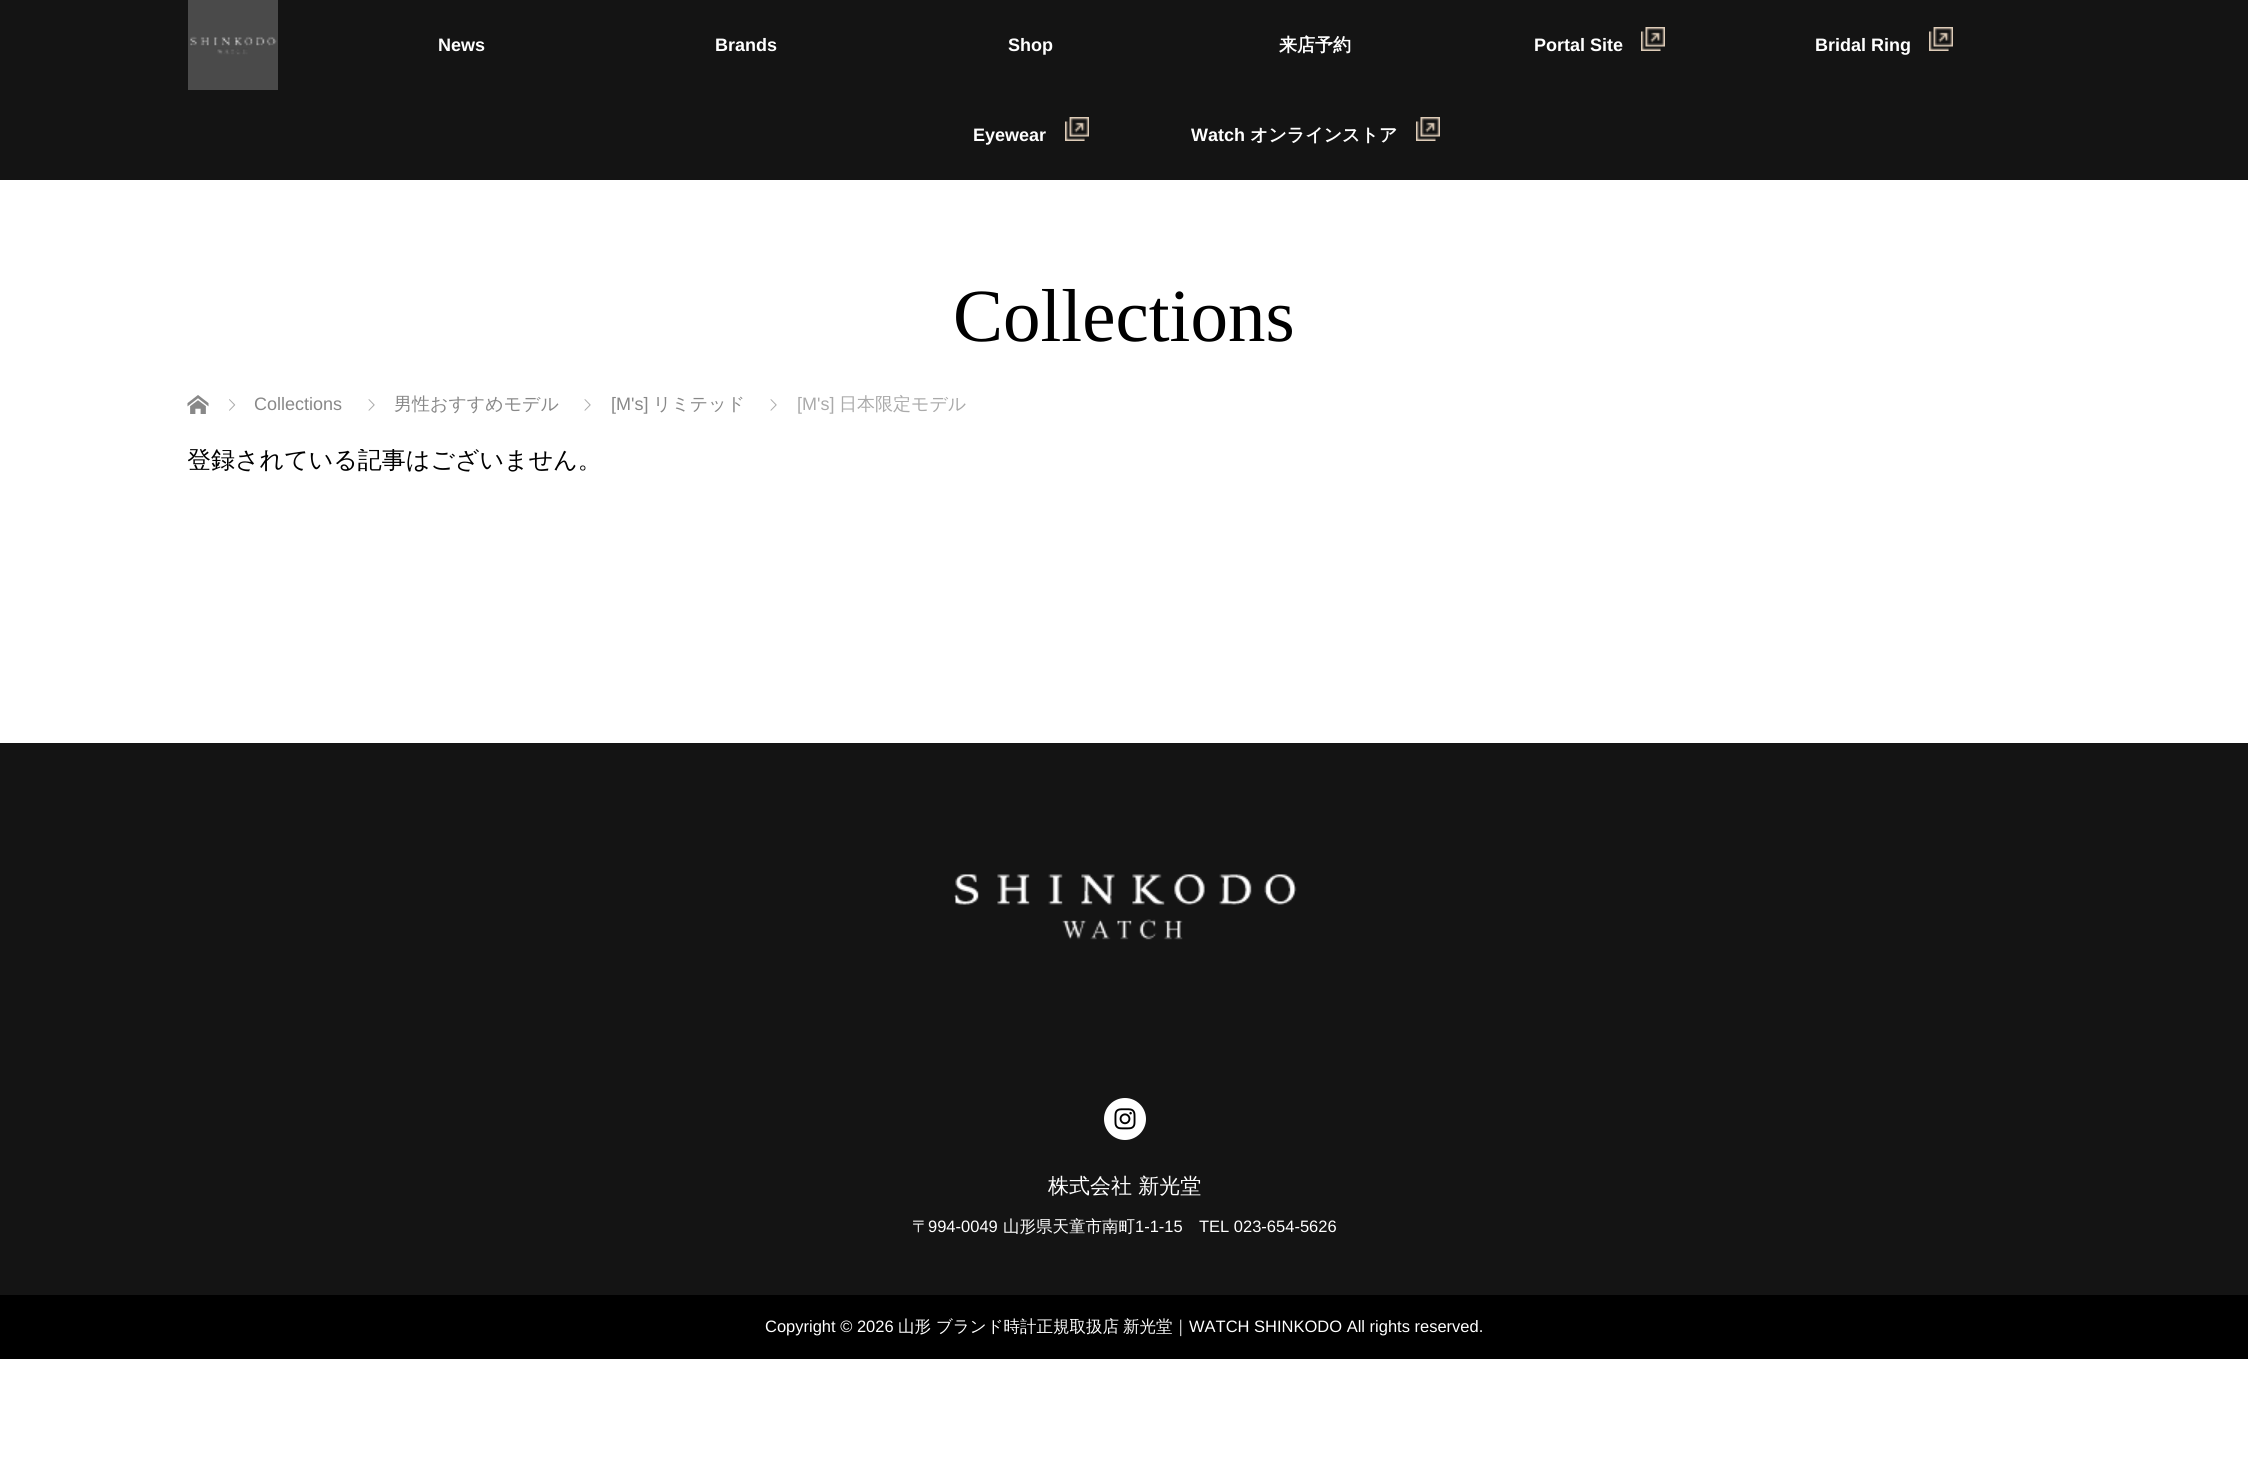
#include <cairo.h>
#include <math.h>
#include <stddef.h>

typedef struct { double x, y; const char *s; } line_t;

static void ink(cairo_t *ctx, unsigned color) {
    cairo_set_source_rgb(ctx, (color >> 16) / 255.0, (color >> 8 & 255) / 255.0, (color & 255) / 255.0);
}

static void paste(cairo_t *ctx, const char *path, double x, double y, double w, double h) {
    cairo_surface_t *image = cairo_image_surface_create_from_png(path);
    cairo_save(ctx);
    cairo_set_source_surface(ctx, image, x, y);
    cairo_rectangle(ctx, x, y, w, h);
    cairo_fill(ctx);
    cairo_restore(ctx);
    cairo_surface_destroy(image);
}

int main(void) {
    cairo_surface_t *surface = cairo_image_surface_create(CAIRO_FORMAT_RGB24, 2248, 1461);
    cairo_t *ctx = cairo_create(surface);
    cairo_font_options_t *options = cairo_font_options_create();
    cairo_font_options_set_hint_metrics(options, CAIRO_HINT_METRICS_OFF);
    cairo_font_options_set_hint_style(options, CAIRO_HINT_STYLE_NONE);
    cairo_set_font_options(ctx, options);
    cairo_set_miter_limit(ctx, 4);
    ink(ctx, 0xFFFFFF);
    cairo_paint(ctx);
    ink(ctx, 0x141414);
    cairo_rectangle(ctx, 0, 0, 2248, 180);
    cairo_fill(ctx);
    ink(ctx, 0x4A4A4A);
    cairo_rectangle(ctx, 188, 0, 90, 90);
    cairo_fill(ctx);
    paste(ctx, "media/1.png", 190, 36, 87, 19);
    cairo_select_font_face(ctx, "Liberation Sans", CAIRO_FONT_SLANT_NORMAL, CAIRO_FONT_WEIGHT_BOLD);
    cairo_set_font_size(ctx, 18);
    ink(ctx, 0xFFFFFF);
    {
        static const line_t items[] = {
            {438, 51, "News"},
            {715, 51, "Brands"},
            {1008, 51, "Shop"},
        };
        for (size_t i = 0; i < sizeof items / sizeof *items; i++) {
            cairo_move_to(ctx, items[i].x, items[i].y);
            cairo_show_text(ctx, items[i].s);
        }
    }
    cairo_select_font_face(ctx, "WenQuanYi Zen Hei", CAIRO_FONT_SLANT_NORMAL, CAIRO_FONT_WEIGHT_BOLD);
    cairo_move_to(ctx, 1279, 51);
    cairo_show_text(ctx, "来店予約");
    cairo_select_font_face(ctx, "Liberation Sans", CAIRO_FONT_SLANT_NORMAL, CAIRO_FONT_WEIGHT_BOLD);
    cairo_move_to(ctx, 1534, 51);
    cairo_show_text(ctx, "Portal Site");
    paste(ctx, "media/2.png", 1641, 27, 24, 24);
    cairo_move_to(ctx, 1815, 51);
    cairo_show_text(ctx, "Bridal Ring");
    paste(ctx, "media/3.png", 1929, 27, 24, 24);
    cairo_move_to(ctx, 973, 141);
    cairo_show_text(ctx, "Eyewear");
    paste(ctx, "media/3.png", 1065, 117, 24, 24);
    cairo_move_to(ctx, 1191, 141);
    cairo_show_text(ctx, "Watch");
    cairo_select_font_face(ctx, "WenQuanYi Zen Hei", CAIRO_FONT_SLANT_NORMAL, CAIRO_FONT_WEIGHT_BOLD);
    cairo_move_to(ctx, 1250, 141);
    cairo_show_text(ctx, "オンラインストア");
    paste(ctx, "media/2.png", 1416, 117, 24, 24);
    cairo_select_font_face(ctx, "Liberation Serif", CAIRO_FONT_SLANT_NORMAL, CAIRO_FONT_WEIGHT_NORMAL);
    cairo_set_font_size(ctx, 75);
    ink(ctx, 0x000000);
    cairo_move_to(ctx, 953, 341);
    cairo_show_text(ctx, "Collections");
    paste(ctx, "media/4.png", 187, 395, 22, 19);
    paste(ctx, "media/5.png", 229, 399, 7, 12);
    cairo_select_font_face(ctx, "Liberation Sans", CAIRO_FONT_SLANT_NORMAL, CAIRO_FONT_WEIGHT_NORMAL);
    cairo_set_font_size(ctx, 18);
    ink(ctx, 0x888888);
    cairo_move_to(ctx, 254, 410);
    cairo_show_text(ctx, "Collections");
    paste(ctx, "media/6.png", 368, 399, 7, 12);
    cairo_select_font_face(ctx, "WenQuanYi Zen Hei Medium", CAIRO_FONT_SLANT_NORMAL, CAIRO_FONT_WEIGHT_NORMAL);
    cairo_move_to(ctx, 394, 410);
    cairo_show_text(ctx, "男性おすすめモデル");
    paste(ctx, "media/6.png", 584, 399, 7, 12);
    cairo_select_font_face(ctx, "Liberation Sans", CAIRO_FONT_SLANT_NORMAL, CAIRO_FONT_WEIGHT_NORMAL);
    cairo_move_to(ctx, 611, 410);
    cairo_show_text(ctx, "[M's]");
    cairo_select_font_face(ctx, "WenQuanYi Zen Hei Medium", CAIRO_FONT_SLANT_NORMAL, CAIRO_FONT_WEIGHT_NORMAL);
    cairo_move_to(ctx, 653, 410);
    cairo_show_text(ctx, "リミテッド");
    paste(ctx, "media/6.png", 770, 399, 7, 12);
    cairo_select_font_face(ctx, "Liberation Sans", CAIRO_FONT_SLANT_NORMAL, CAIRO_FONT_WEIGHT_NORMAL);
    ink(ctx, 0xAAAAAA);
    cairo_move_to(ctx, 797, 410);
    cairo_show_text(ctx, "[M's]");
    cairo_select_font_face(ctx, "WenQuanYi Zen Hei Medium", CAIRO_FONT_SLANT_NORMAL, CAIRO_FONT_WEIGHT_NORMAL);
    cairo_move_to(ctx, 839, 410);
    cairo_show_text(ctx, "日本限定モデル");
    cairo_save(ctx);
    cairo_rectangle(ctx, 188, 449, 1875, 24);
    cairo_clip(ctx);
    cairo_set_font_size(ctx, 24);
    ink(ctx, 0x000000);
    cairo_move_to(ctx, 187, 468);
    cairo_show_text(ctx, "登録されている記事はございません。");
    cairo_restore(ctx);
    ink(ctx, 0x141414);
    cairo_rectangle(ctx, 0, 743, 2248, 552);
    cairo_fill(ctx);
    paste(ctx, "media/7.png", 954, 874, 343, 66);
    ink(ctx, 0xFFFFFF);
    cairo_arc(ctx, 1125, 1119, 21, 0, 2 * M_PI);
    cairo_fill(ctx);
    paste(ctx, "media/8.png", 1114, 1108, 22, 22);
    cairo_set_font_size(ctx, 21);
    cairo_move_to(ctx, 1048, 1193);
    cairo_show_text(ctx, "株式会社 新光堂");
    cairo_set_font_size(ctx, 16.5);
    cairo_move_to(ctx, 912, 1232);
    cairo_show_text(ctx, "〒");
    cairo_select_font_face(ctx, "Liberation Sans", CAIRO_FONT_SLANT_NORMAL, CAIRO_FONT_WEIGHT_NORMAL);
    cairo_move_to(ctx, 928, 1232);
    cairo_show_text(ctx, "994-0049");
    cairo_select_font_face(ctx, "WenQuanYi Zen Hei Medium", CAIRO_FONT_SLANT_NORMAL, CAIRO_FONT_WEIGHT_NORMAL);
    cairo_move_to(ctx, 1003, 1232);
    cairo_show_text(ctx, "山形県天童市南町");
    cairo_select_font_face(ctx, "Liberation Sans", CAIRO_FONT_SLANT_NORMAL, CAIRO_FONT_WEIGHT_NORMAL);
    cairo_move_to(ctx, 1135, 1232);
    cairo_show_text(ctx, "1-1-15");
    cairo_move_to(ctx, 1199, 1232);
    cairo_show_text(ctx, "TEL 023-654-5626");
    ink(ctx, 0x000000);
    cairo_rectangle(ctx, 0, 1295, 2248, 64);
    cairo_fill(ctx);
    ink(ctx, 0xFFFFFF);
    cairo_move_to(ctx, 765, 1332);
    cairo_show_text(ctx, "Copyright © 2026");
    cairo_select_font_face(ctx, "WenQuanYi Zen Hei Medium", CAIRO_FONT_SLANT_NORMAL, CAIRO_FONT_WEIGHT_NORMAL);
    {
        static const line_t items[] = {
            {898, 1332, "山形"},
            {936, 1332, "ブランド時計正規取扱店"},
            {1123, 1332, "新光堂｜"},
        };
        for (size_t i = 0; i < sizeof items / sizeof *items; i++) {
            cairo_move_to(ctx, items[i].x, items[i].y);
            cairo_show_text(ctx, items[i].s);
        }
    }
    cairo_select_font_face(ctx, "Liberation Sans", CAIRO_FONT_SLANT_NORMAL, CAIRO_FONT_WEIGHT_NORMAL);
    cairo_move_to(ctx, 1189, 1332);
    cairo_show_text(ctx, "WATCH SHINKODO All rights reserved.");
    cairo_surface_write_to_png(surface, "image.png");
    cairo_font_options_destroy(options);
    cairo_destroy(ctx);
    cairo_surface_destroy(surface);
    return 0;
}
